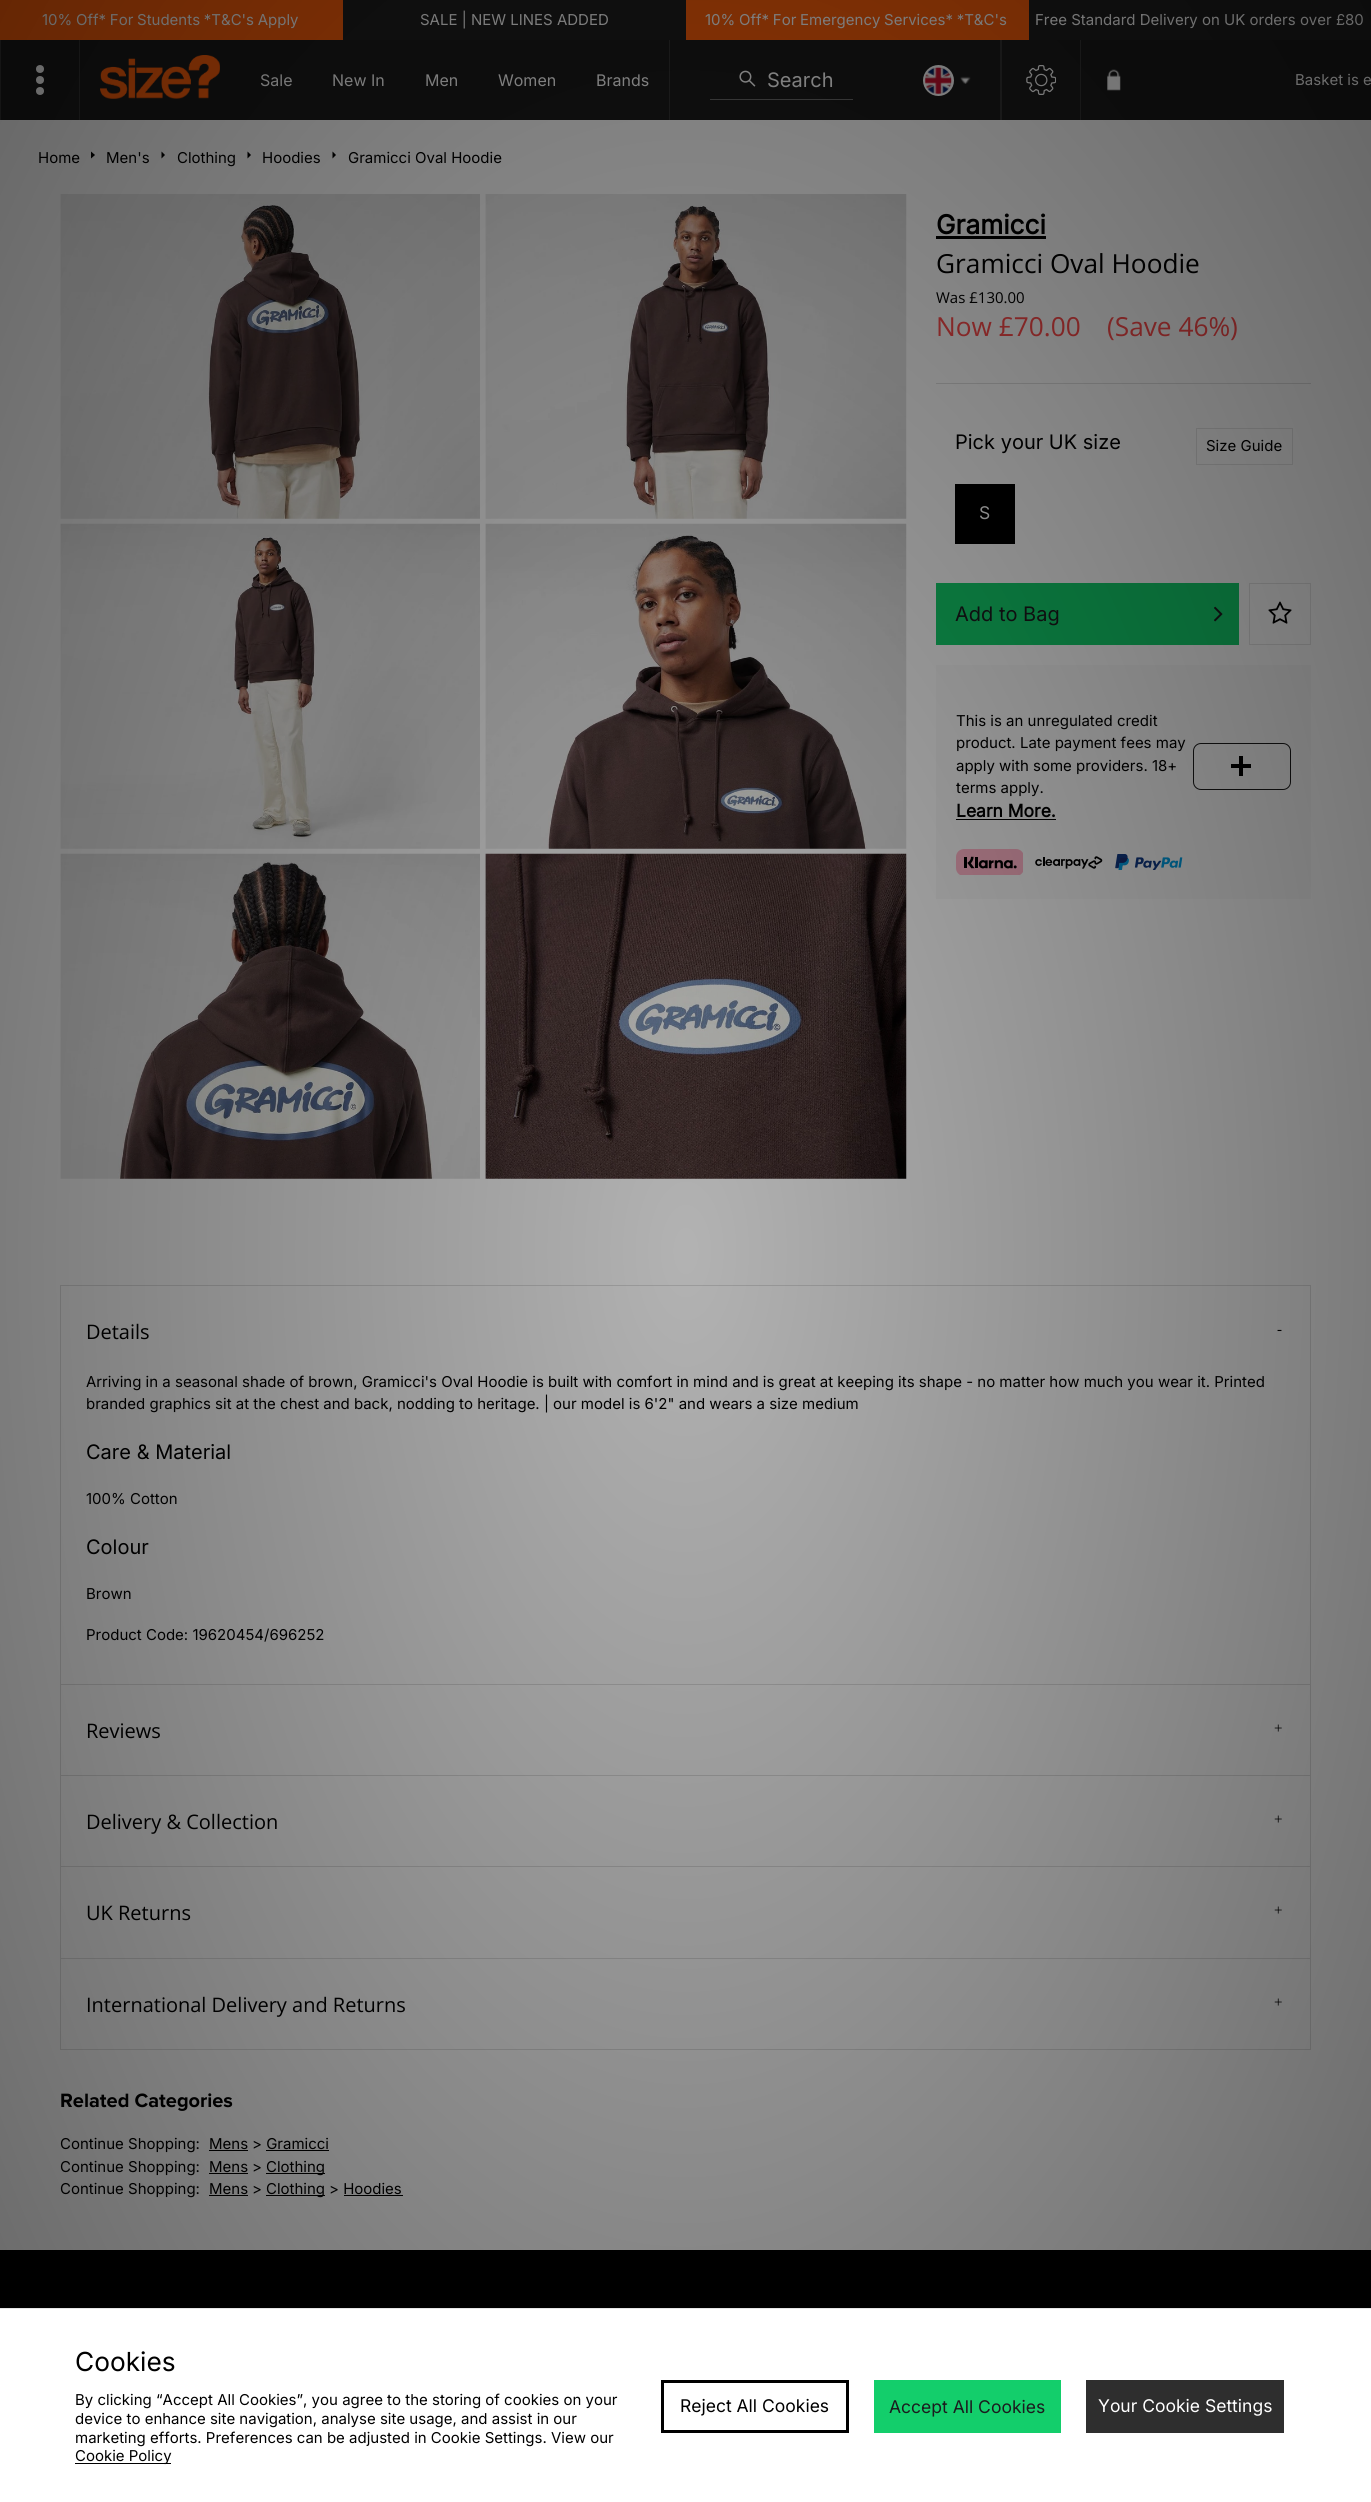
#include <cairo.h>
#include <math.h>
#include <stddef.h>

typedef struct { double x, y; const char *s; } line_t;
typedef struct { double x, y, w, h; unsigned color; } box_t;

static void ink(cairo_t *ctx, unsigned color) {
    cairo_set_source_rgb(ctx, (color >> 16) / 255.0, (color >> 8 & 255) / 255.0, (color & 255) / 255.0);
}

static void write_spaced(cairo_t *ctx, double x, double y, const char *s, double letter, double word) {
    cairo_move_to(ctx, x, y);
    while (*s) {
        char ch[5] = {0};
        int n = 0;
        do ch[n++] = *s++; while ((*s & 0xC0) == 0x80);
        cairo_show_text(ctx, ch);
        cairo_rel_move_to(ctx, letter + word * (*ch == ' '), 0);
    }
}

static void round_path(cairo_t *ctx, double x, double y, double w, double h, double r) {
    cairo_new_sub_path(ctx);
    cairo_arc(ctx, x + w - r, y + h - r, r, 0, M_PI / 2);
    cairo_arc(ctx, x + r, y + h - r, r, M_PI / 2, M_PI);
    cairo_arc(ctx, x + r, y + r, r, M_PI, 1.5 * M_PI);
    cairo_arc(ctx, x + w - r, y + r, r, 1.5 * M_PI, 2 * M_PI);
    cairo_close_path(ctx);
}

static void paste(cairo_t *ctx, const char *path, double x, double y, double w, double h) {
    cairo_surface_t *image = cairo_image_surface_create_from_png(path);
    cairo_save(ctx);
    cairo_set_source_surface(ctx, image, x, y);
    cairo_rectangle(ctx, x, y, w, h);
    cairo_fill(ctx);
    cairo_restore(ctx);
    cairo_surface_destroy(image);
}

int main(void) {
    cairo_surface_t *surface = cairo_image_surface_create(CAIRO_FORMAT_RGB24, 1371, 2502);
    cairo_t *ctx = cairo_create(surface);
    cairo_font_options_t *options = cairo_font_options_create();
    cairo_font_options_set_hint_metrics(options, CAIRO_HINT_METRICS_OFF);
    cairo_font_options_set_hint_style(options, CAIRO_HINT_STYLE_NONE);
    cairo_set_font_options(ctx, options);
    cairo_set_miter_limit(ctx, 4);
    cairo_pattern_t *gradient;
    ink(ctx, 0xFFFFFF);
    cairo_paint(ctx);
    ink(ctx, 0x1F1F1F);
    cairo_rectangle(ctx, 343, 0, 1028, 40);
    cairo_fill(ctx);
    ink(ctx, 0xFF600B);
    cairo_rectangle(ctx, 0, 0, 343, 40);
    cairo_fill(ctx);
    cairo_select_font_face(ctx, "Inter", CAIRO_FONT_SLANT_NORMAL, CAIRO_FONT_WEIGHT_NORMAL);
    cairo_set_font_size(ctx, 15);
    ink(ctx, 0xFFFFFF);
    write_spaced(ctx, 42, 25, "10% Off* For Students *T&C's Apply", 0, -0.5);
    cairo_move_to(ctx, 420, 25);
    cairo_show_text(ctx, "SALE | NEW LINES ADDED");
    ink(ctx, 0xFF600B);
    cairo_rectangle(ctx, 686, 0, 343, 40);
    cairo_fill(ctx);
    ink(ctx, 0xFFFFFF);
    write_spaced(ctx, 705, 25, "10% Off* For Emergency Services* *T&C's", 0, -0.5);
    cairo_move_to(ctx, 1035, 25);
    cairo_show_text(ctx, "Free Standard Delivery on UK orders over £80");
    {
        static const box_t items[] = {
            {1, 40, 1370, 80, 0x1B1B1B},
            {79, 40, 1, 80, 0x333333},
            {0, 40, 1, 80, 0x333333},
        };
        for (size_t i = 0; i < sizeof items / sizeof *items; i++) {
            ink(ctx, items[i].color);
            cairo_rectangle(ctx, items[i].x, items[i].y, items[i].w, items[i].h);
            cairo_fill(ctx);
        }
    }
    ink(ctx, 0xFFFFFF);
    cairo_new_path(ctx);
    cairo_arc(ctx, 40, 91, 4, 0, 2 * M_PI);
    cairo_fill(ctx);
    cairo_arc(ctx, 40, 80, 4, 0, 2 * M_PI);
    cairo_fill(ctx);
    cairo_arc(ctx, 40, 69, 4, 0, 2 * M_PI);
    cairo_fill(ctx);
    paste(ctx, "media/1.png", 100, 55, 120, 44);
    ink(ctx, 0x333333);
    cairo_rectangle(ctx, 669, 40, 1, 80);
    cairo_fill(ctx);
    cairo_set_font_size(ctx, 16);
    ink(ctx, 0xFFFFFF);
    {
        static const line_t items[] = {
            {260, 86, "Sale"},
            {332, 86, "New In"},
            {425, 86, "Men"},
            {498, 86, "Women"},
            {596, 86, "Brands"},
        };
        for (size_t i = 0; i < sizeof items / sizeof *items; i++) {
            cairo_move_to(ctx, items[i].x, items[i].y);
            cairo_show_text(ctx, items[i].s);
        }
    }
    ink(ctx, 0x6B6B6B);
    cairo_rectangle(ctx, 710, 99, 143, 1);
    cairo_fill(ctx);
    paste(ctx, "media/2.png", 739, 70, 17, 17);
    cairo_set_font_size(ctx, 20);
    ink(ctx, 0xFFFFFF);
    cairo_move_to(ctx, 767, 87);
    cairo_show_text(ctx, "Search");
    ink(ctx, 0x333333);
    cairo_rectangle(ctx, 1000, 40, 2, 80);
    cairo_fill(ctx);
    cairo_arc(ctx, 938.5, 80.5, 14, 0, 2 * M_PI);
    ink(ctx, 0xFFFFFF);
    cairo_set_line_width(ctx, 3);
    cairo_stroke(ctx);
    paste(ctx, "media/3.png", 924, 67, 28, 27);
    paste(ctx, "media/4.png", 960, 76, 11, 8);
    ink(ctx, 0x333333);
    cairo_rectangle(ctx, 1080, 40, 1, 80);
    cairo_fill(ctx);
    paste(ctx, "media/5.png", 1026, 65, 30, 30);
    paste(ctx, "media/6.png", 1107, 69, 14, 22);
    cairo_set_font_size(ctx, 15);
    ink(ctx, 0xFFFFFF);
    cairo_move_to(ctx, 1295, 85);
    cairo_show_text(ctx, "Basket is e");
    ink(ctx, 0x000000);
    cairo_move_to(ctx, 38, 163);
    cairo_show_text(ctx, "Home");
    cairo_new_path(ctx);
    cairo_move_to(ctx, 91, 151.5);
    cairo_line_to(ctx, 95, 155);
    cairo_line_to(ctx, 91, 155);
    cairo_close_path(ctx);
    cairo_move_to(ctx, 95, 155);
    cairo_line_to(ctx, 91, 158.5);
    cairo_line_to(ctx, 91, 155);
    cairo_close_path(ctx);
    cairo_fill(ctx);
    cairo_move_to(ctx, 106, 163);
    cairo_show_text(ctx, "Men's");
    cairo_new_path(ctx);
    cairo_move_to(ctx, 161.5, 151.5);
    cairo_line_to(ctx, 165, 155);
    cairo_line_to(ctx, 161.5, 155);
    cairo_close_path(ctx);
    cairo_move_to(ctx, 165, 155);
    cairo_line_to(ctx, 161.5, 158.5);
    cairo_line_to(ctx, 161.5, 155);
    cairo_close_path(ctx);
    cairo_fill(ctx);
    cairo_move_to(ctx, 177, 163);
    cairo_show_text(ctx, "Clothing");
    cairo_new_path(ctx);
    cairo_move_to(ctx, 247.5, 151.5);
    cairo_line_to(ctx, 251, 155);
    cairo_line_to(ctx, 247.5, 155);
    cairo_close_path(ctx);
    cairo_move_to(ctx, 251, 155);
    cairo_line_to(ctx, 247.5, 158.5);
    cairo_line_to(ctx, 247.5, 155);
    cairo_close_path(ctx);
    cairo_fill(ctx);
    cairo_move_to(ctx, 262, 163);
    cairo_show_text(ctx, "Hoodies");
    cairo_new_path(ctx);
    cairo_move_to(ctx, 332.5, 151.5);
    cairo_line_to(ctx, 336, 155);
    cairo_line_to(ctx, 332.5, 155);
    cairo_close_path(ctx);
    cairo_move_to(ctx, 336, 155);
    cairo_line_to(ctx, 332.5, 158.5);
    cairo_line_to(ctx, 332.5, 155);
    cairo_close_path(ctx);
    cairo_fill(ctx);
    cairo_move_to(ctx, 348, 163);
    cairo_show_text(ctx, "Gramicci Oval Hoodie");
    paste(ctx, "media/7.png", 60, 194, 420, 325);
    paste(ctx, "media/8.png", 485, 194, 422, 325);
    paste(ctx, "media/9.png", 60, 523, 420, 326);
    paste(ctx, "media/10.png", 485, 523, 422, 326);
    paste(ctx, "media/11.png", 60, 853, 420, 326);
    paste(ctx, "media/12.png", 485, 853, 422, 326);
    cairo_select_font_face(ctx, "Inter", CAIRO_FONT_SLANT_NORMAL, CAIRO_FONT_WEIGHT_BOLD);
    cairo_set_font_size(ctx, 26.25);
    cairo_move_to(ctx, 936, 234);
    cairo_show_text(ctx, "Gramicci");
    cairo_rectangle(ctx, 936, 236, 110, 3);
    cairo_fill(ctx);
    cairo_select_font_face(ctx, "Open Sans", CAIRO_FONT_SLANT_NORMAL, CAIRO_FONT_WEIGHT_NORMAL);
    cairo_move_to(ctx, 936, 273);
    cairo_show_text(ctx, "Gramicci Oval Hoodie");
    cairo_set_font_size(ctx, 15);
    cairo_move_to(ctx, 936, 303);
    cairo_show_text(ctx, "Was £130.00");
    cairo_set_font_size(ctx, 26.25);
    ink(ctx, 0xFF4C4C);
    cairo_move_to(ctx, 936, 336);
    cairo_show_text(ctx, "Now £70.00");
    cairo_move_to(ctx, 1107, 336);
    cairo_show_text(ctx, "(Save 46%)");
    ink(ctx, 0xDFDFDF);
    cairo_rectangle(ctx, 936, 383, 375, 1);
    cairo_fill(ctx);
    cairo_select_font_face(ctx, "Inter", CAIRO_FONT_SLANT_NORMAL, CAIRO_FONT_WEIGHT_NORMAL);
    cairo_set_font_size(ctx, 20);
    ink(ctx, 0x000000);
    cairo_move_to(ctx, 955, 449);
    cairo_show_text(ctx, "Pick your UK size");
    cairo_rectangle(ctx, 1196.5, 428.5, 96, 36);
    ink(ctx, 0xE5E5E5);
    cairo_set_line_width(ctx, 1);
    cairo_stroke(ctx);
    cairo_set_font_size(ctx, 15);
    ink(ctx, 0x000000);
    cairo_move_to(ctx, 1206, 451);
    cairo_show_text(ctx, "Size Guide");
    cairo_rectangle(ctx, 955, 484, 60, 60);
    cairo_fill(ctx);
    cairo_set_font_size(ctx, 17.5);
    ink(ctx, 0xFFFFFF);
    cairo_move_to(ctx, 979, 519);
    cairo_show_text(ctx, "S");
    ink(ctx, 0x13CE6B);
    cairo_rectangle(ctx, 936, 583, 303, 62);
    cairo_fill(ctx);
    cairo_set_font_size(ctx, 20);
    ink(ctx, 0x1B1C1E);
    cairo_move_to(ctx, 955, 621);
    cairo_show_text(ctx, "Add to Bag");
    paste(ctx, "media/13.png", 1214, 606, 9, 16);
    cairo_rectangle(ctx, 1249.5, 583.5, 61, 61);
    ink(ctx, 0xE5E5E5);
    cairo_stroke(ctx);
    paste(ctx, "media/14.png", 1268, 601, 24, 23);
    ink(ctx, 0xF9F9F9);
    cairo_rectangle(ctx, 936, 665, 375, 234);
    cairo_fill(ctx);
    cairo_set_font_size(ctx, 15);
    ink(ctx, 0x000000);
    {
        static const line_t items[] = {
            {956, 726, "This is an unregulated credit"},
            {956, 748, "product. Late payment fees may"},
            {956, 771, "apply with some providers. 18+"},
            {956, 793, "terms apply."},
        };
        for (size_t i = 0; i < sizeof items / sizeof *items; i++) {
            cairo_move_to(ctx, items[i].x, items[i].y);
            cairo_show_text(ctx, items[i].s);
        }
    }
    cairo_select_font_face(ctx, "Inter", CAIRO_FONT_SLANT_NORMAL, CAIRO_FONT_WEIGHT_BOLD);
    cairo_set_font_size(ctx, 17.5);
    cairo_move_to(ctx, 956, 817);
    cairo_show_text(ctx, "Learn More.");
    cairo_rectangle(ctx, 956, 819, 100, 1);
    cairo_fill(ctx);
    round_path(ctx, 1193.5, 743.5, 97, 46, 7.5);
    ink(ctx, 0x1B1B1B);
    cairo_stroke(ctx);
    ink(ctx, 0x000000);
    cairo_rectangle(ctx, 1231, 764, 20, 4);
    cairo_fill(ctx);
    cairo_rectangle(ctx, 1239, 756, 4, 20);
    cairo_fill(ctx);
    paste(ctx, "media/15.png", 956, 849, 67, 26);
    paste(ctx, "media/16.png", 1035, 856, 68, 13);
    paste(ctx, "media/17.png", 1115, 854, 68, 16);
    cairo_rectangle(ctx, 60.5, 1285.5, 1250, 764);
    ink(ctx, 0xDFDFDF);
    cairo_stroke(ctx);
    cairo_rectangle(ctx, 61, 1684, 1249, 1);
    cairo_fill(ctx);
    cairo_select_font_face(ctx, "Open Sans", CAIRO_FONT_SLANT_NORMAL, CAIRO_FONT_WEIGHT_NORMAL);
    cairo_set_font_size(ctx, 20);
    ink(ctx, 0x000000);
    cairo_move_to(ctx, 86, 1339);
    cairo_show_text(ctx, "Details");
    cairo_select_font_face(ctx, "Liberation Serif", CAIRO_FONT_SLANT_NORMAL, CAIRO_FONT_WEIGHT_NORMAL);
    cairo_set_font_size(ctx, 15);
    cairo_move_to(ctx, 1277, 1334);
    cairo_show_text(ctx, "-");
    cairo_select_font_face(ctx, "Inter", CAIRO_FONT_SLANT_NORMAL, CAIRO_FONT_WEIGHT_NORMAL);
    cairo_move_to(ctx, 86, 1387);
    cairo_show_text(ctx, "Arriving in a seasonal shade of brown, Gramicci's Oval Hoodie is built with comfort in mind and is great at keeping its shape - no matter how much you wear it. Printed");
    cairo_move_to(ctx, 86, 1409);
    cairo_show_text(ctx, "branded graphics sit at the chest and back, nodding to heritage. | our model is 6'2\" and wears a size medium");
    cairo_set_font_size(ctx, 20);
    cairo_move_to(ctx, 86, 1459);
    cairo_show_text(ctx, "Care & Material");
    cairo_set_font_size(ctx, 15);
    cairo_move_to(ctx, 86, 1504);
    cairo_show_text(ctx, "100% Cotton");
    cairo_set_font_size(ctx, 20);
    cairo_move_to(ctx, 86, 1554);
    cairo_show_text(ctx, "Colour");
    cairo_set_font_size(ctx, 15);
    cairo_move_to(ctx, 86, 1599);
    cairo_show_text(ctx, "Brown");
    cairo_move_to(ctx, 86, 1640);
    cairo_show_text(ctx, "Product Code: 19620454/696252");
    ink(ctx, 0xDFDFDF);
    cairo_rectangle(ctx, 61, 1775, 1249, 1);
    cairo_fill(ctx);
    cairo_select_font_face(ctx, "Open Sans", CAIRO_FONT_SLANT_NORMAL, CAIRO_FONT_WEIGHT_NORMAL);
    cairo_set_font_size(ctx, 20);
    ink(ctx, 0x000000);
    cairo_move_to(ctx, 86, 1738);
    cairo_show_text(ctx, "Reviews");
    cairo_select_font_face(ctx, "Liberation Serif", CAIRO_FONT_SLANT_NORMAL, CAIRO_FONT_WEIGHT_NORMAL);
    cairo_set_font_size(ctx, 15);
    cairo_move_to(ctx, 1274, 1733);
    cairo_show_text(ctx, "+");
    ink(ctx, 0xDFDFDF);
    cairo_rectangle(ctx, 61, 1866, 1249, 1);
    cairo_fill(ctx);
    cairo_select_font_face(ctx, "Open Sans", CAIRO_FONT_SLANT_NORMAL, CAIRO_FONT_WEIGHT_NORMAL);
    cairo_set_font_size(ctx, 20);
    ink(ctx, 0x000000);
    cairo_move_to(ctx, 86, 1829);
    cairo_show_text(ctx, "Delivery & Collection");
    cairo_select_font_face(ctx, "Liberation Serif", CAIRO_FONT_SLANT_NORMAL, CAIRO_FONT_WEIGHT_NORMAL);
    cairo_set_font_size(ctx, 15);
    cairo_move_to(ctx, 1274, 1824);
    cairo_show_text(ctx, "+");
    ink(ctx, 0xDFDFDF);
    cairo_rectangle(ctx, 61, 1958, 1249, 1);
    cairo_fill(ctx);
    cairo_select_font_face(ctx, "Open Sans", CAIRO_FONT_SLANT_NORMAL, CAIRO_FONT_WEIGHT_NORMAL);
    cairo_set_font_size(ctx, 20);
    ink(ctx, 0x000000);
    cairo_move_to(ctx, 86, 1920);
    cairo_show_text(ctx, "UK Returns");
    cairo_select_font_face(ctx, "Liberation Serif", CAIRO_FONT_SLANT_NORMAL, CAIRO_FONT_WEIGHT_NORMAL);
    cairo_set_font_size(ctx, 15);
    cairo_move_to(ctx, 1274, 1915);
    cairo_show_text(ctx, "+");
    cairo_select_font_face(ctx, "Open Sans", CAIRO_FONT_SLANT_NORMAL, CAIRO_FONT_WEIGHT_NORMAL);
    cairo_set_font_size(ctx, 20);
    cairo_move_to(ctx, 86, 2012);
    cairo_show_text(ctx, "International Delivery and Returns");
    cairo_select_font_face(ctx, "Liberation Serif", CAIRO_FONT_SLANT_NORMAL, CAIRO_FONT_WEIGHT_NORMAL);
    cairo_set_font_size(ctx, 15);
    cairo_move_to(ctx, 1274, 2007);
    cairo_show_text(ctx, "+");
    cairo_select_font_face(ctx, "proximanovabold", CAIRO_FONT_SLANT_NORMAL, CAIRO_FONT_WEIGHT_BOLD);
    cairo_set_font_size(ctx, 20);
    cairo_move_to(ctx, 60, 2107);
    cairo_show_text(ctx, "Related Categories");
    cairo_select_font_face(ctx, "Inter", CAIRO_FONT_SLANT_NORMAL, CAIRO_FONT_WEIGHT_NORMAL);
    cairo_set_font_size(ctx, 15);
    cairo_move_to(ctx, 60, 2149);
    cairo_show_text(ctx, "Continue Shopping:");
    cairo_move_to(ctx, 209, 2149);
    cairo_show_text(ctx, "Mens");
    cairo_rectangle(ctx, 209, 2150, 39, 1);
    cairo_fill(ctx);
    cairo_move_to(ctx, 252, 2149);
    cairo_show_text(ctx, "> Gramicci");
    cairo_rectangle(ctx, 266, 2150, 63, 1);
    cairo_fill(ctx);
    cairo_move_to(ctx, 60, 2172);
    cairo_show_text(ctx, "Continue Shopping:");
    cairo_move_to(ctx, 209, 2172);
    cairo_show_text(ctx, "Mens");
    cairo_rectangle(ctx, 209, 2173, 39, 1);
    cairo_fill(ctx);
    cairo_move_to(ctx, 252, 2172);
    cairo_show_text(ctx, ">");
    cairo_rectangle(ctx, 266, 2173, 59, 1);
    cairo_fill(ctx);
    {
        static const line_t items[] = {
            {266, 2172, "Clothing"},
            {60, 2194, "Continue Shopping:"},
            {209, 2194, "Mens"},
        };
        for (size_t i = 0; i < sizeof items / sizeof *items; i++) {
            cairo_move_to(ctx, items[i].x, items[i].y);
            cairo_show_text(ctx, items[i].s);
        }
    }
    cairo_rectangle(ctx, 209, 2195, 39, 1);
    cairo_fill(ctx);
    cairo_move_to(ctx, 252, 2194);
    cairo_show_text(ctx, ">");
    cairo_rectangle(ctx, 266, 2195, 59, 1);
    cairo_fill(ctx);
    cairo_move_to(ctx, 266, 2194);
    cairo_show_text(ctx, "Clothing");
    cairo_move_to(ctx, 329, 2194);
    cairo_show_text(ctx, "> Hoodies");
    cairo_rectangle(ctx, 344, 2195, 59, 1);
    cairo_fill(ctx);
    cairo_rectangle(ctx, 0, 2250, 1371, 58);
    cairo_fill(ctx);
    gradient = cairo_pattern_create_radial(0, 0, 0, 0, 0, 1);
    cairo_pattern_set_matrix(gradient, &(cairo_matrix_t){1.0 / 970, 0, 0, 1.0 / 1770, -1.0 * 686 / 970, -1.0 * 1251 / 1770});
    cairo_pattern_add_color_stop_rgba(gradient, 0, 0, 0, 0, 0.3);
    cairo_pattern_add_color_stop_rgba(gradient, 1, 0, 0, 0, 0.6);
    cairo_set_source(ctx, gradient);
    cairo_pattern_destroy(gradient);
    cairo_rectangle(ctx, 0, 0, 1371, 2250);
    cairo_fill(ctx);
    ink(ctx, 0xE5E5E5);
    cairo_rectangle(ctx, 0, 2308, 1371, 1);
    cairo_fill(ctx);
    cairo_set_font_size(ctx, 26.25);
    ink(ctx, 0x000000);
    cairo_move_to(ctx, 75, 2371);
    cairo_show_text(ctx, "Cookies");
    cairo_set_font_size(ctx, 15);
    {
        static const line_t items[] = {
            {75, 2405, "By clicking “Accept All Cookies”, you agree to the storing of cookies on your"},
            {75, 2424, "device to enhance site navigation, analyse site usage, and assist in our"},
            {75, 2443, "marketing efforts. Preferences can be adjusted in Cookie Settings. View our"},
        };
        for (size_t i = 0; i < sizeof items / sizeof *items; i++) {
            cairo_move_to(ctx, items[i].x, items[i].y);
            cairo_show_text(ctx, items[i].s);
        }
    }
    cairo_rectangle(ctx, 75, 2463, 96, 1);
    cairo_fill(ctx);
    cairo_move_to(ctx, 75, 2461);
    cairo_show_text(ctx, "Cookie Policy");
    cairo_rectangle(ctx, 662.5, 2381.5, 185, 50);
    cairo_set_line_width(ctx, 3);
    cairo_stroke(ctx);
    cairo_set_font_size(ctx, 17.5);
    cairo_move_to(ctx, 680, 2412);
    cairo_show_text(ctx, "Reject All Cookies");
    ink(ctx, 0x13CE6B);
    cairo_rectangle(ctx, 874, 2380, 187, 53);
    cairo_fill(ctx);
    ink(ctx, 0x1B1C1E);
    cairo_move_to(ctx, 889, 2413);
    cairo_show_text(ctx, "Accept All Cookies");
    ink(ctx, 0x2E2E2E);
    cairo_rectangle(ctx, 1086, 2380, 198, 53);
    cairo_fill(ctx);
    ink(ctx, 0xFFFFFF);
    cairo_move_to(ctx, 1098, 2412);
    cairo_show_text(ctx, "Your Cookie Settings");
    cairo_surface_write_to_png(surface, "image.png");
    cairo_font_options_destroy(options);
    cairo_destroy(ctx);
    cairo_surface_destroy(surface);
    return 0;
}
